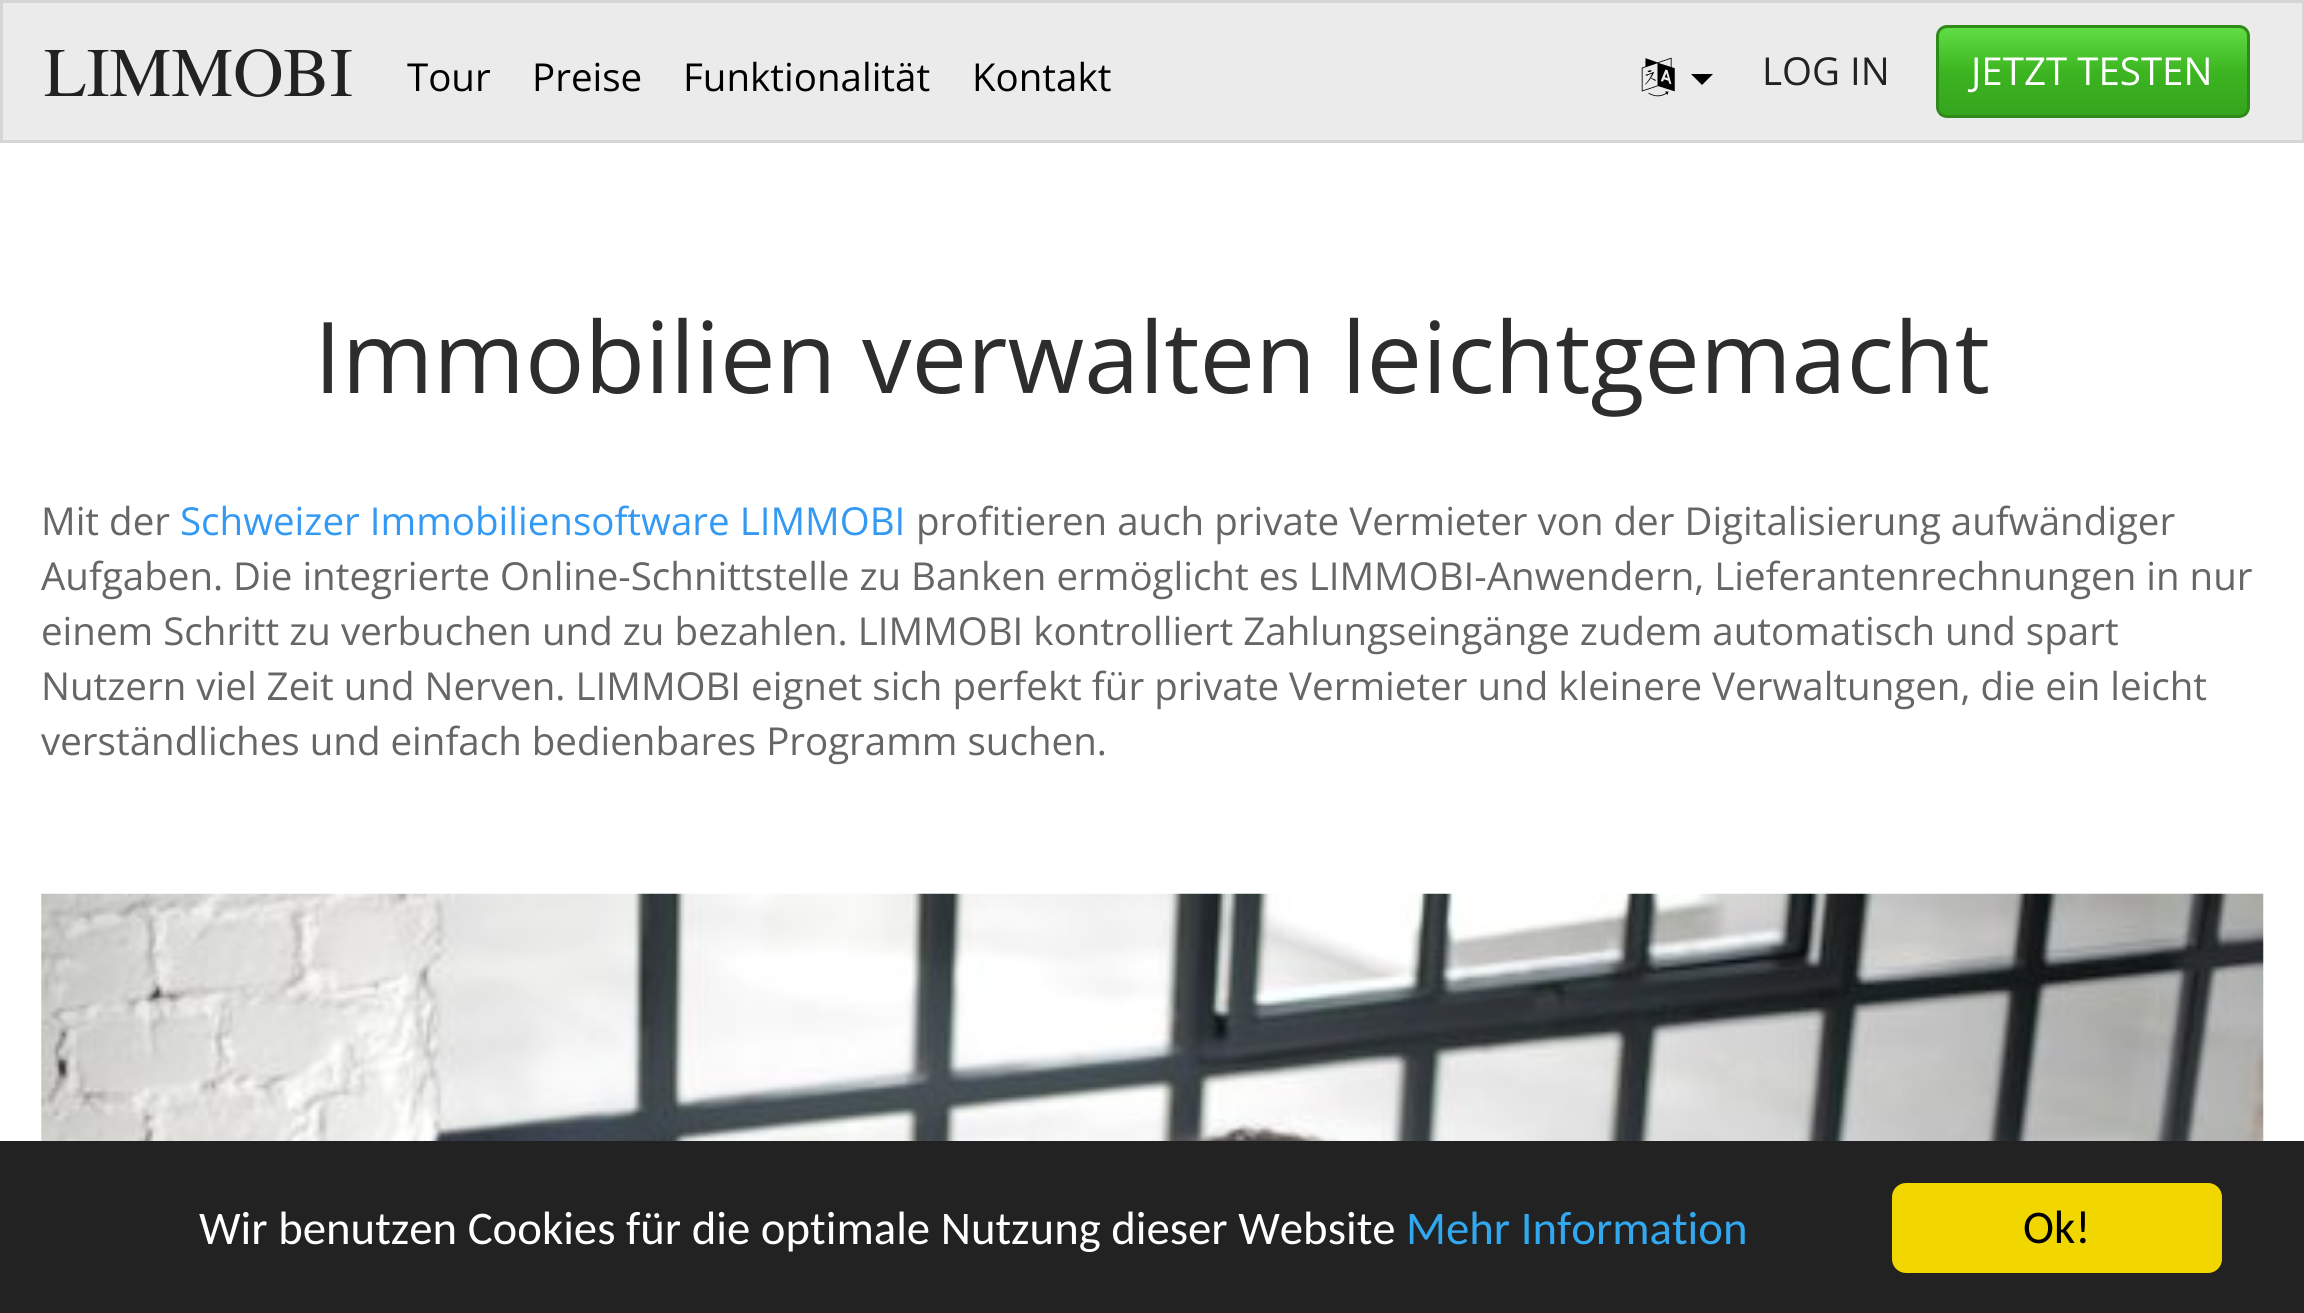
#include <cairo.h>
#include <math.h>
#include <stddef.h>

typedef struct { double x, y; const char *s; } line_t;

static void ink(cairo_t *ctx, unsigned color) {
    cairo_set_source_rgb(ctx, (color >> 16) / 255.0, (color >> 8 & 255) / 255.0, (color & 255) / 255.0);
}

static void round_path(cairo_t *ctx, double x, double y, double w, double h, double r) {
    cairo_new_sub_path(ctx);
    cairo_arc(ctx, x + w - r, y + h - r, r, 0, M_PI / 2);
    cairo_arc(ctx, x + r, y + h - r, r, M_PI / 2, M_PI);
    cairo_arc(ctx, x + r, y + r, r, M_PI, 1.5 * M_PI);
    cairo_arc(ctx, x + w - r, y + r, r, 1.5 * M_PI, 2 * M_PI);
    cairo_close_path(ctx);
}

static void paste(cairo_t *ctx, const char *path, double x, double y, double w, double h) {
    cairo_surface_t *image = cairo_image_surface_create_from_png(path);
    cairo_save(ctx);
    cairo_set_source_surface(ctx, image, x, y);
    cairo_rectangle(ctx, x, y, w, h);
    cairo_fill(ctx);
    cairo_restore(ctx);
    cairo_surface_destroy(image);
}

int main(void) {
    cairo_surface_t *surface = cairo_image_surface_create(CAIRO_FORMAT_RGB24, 2304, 1313);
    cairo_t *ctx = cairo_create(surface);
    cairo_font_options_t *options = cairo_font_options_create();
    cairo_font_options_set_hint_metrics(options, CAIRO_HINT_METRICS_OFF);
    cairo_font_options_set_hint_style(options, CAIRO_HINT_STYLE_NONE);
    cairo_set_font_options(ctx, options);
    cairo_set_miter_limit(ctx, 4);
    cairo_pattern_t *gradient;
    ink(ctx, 0xFFFFFF);
    cairo_paint(ctx);
    ink(ctx, 0xEBEBEB);
    cairo_rectangle(ctx, 1.5, 1.5, 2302, 140);
    cairo_fill_preserve(ctx);
    ink(ctx, 0xD5D5D5);
    cairo_set_line_width(ctx, 3);
    cairo_stroke(ctx);
    cairo_select_font_face(ctx, "TeX Gyre Termes", CAIRO_FONT_SLANT_NORMAL, CAIRO_FONT_WEIGHT_NORMAL);
    cairo_set_font_size(ctx, 69.5);
    ink(ctx, 0x222222);
    cairo_move_to(ctx, 44, 96);
    cairo_show_text(ctx, "LIMMOBI");
    cairo_select_font_face(ctx, "Open Sans", CAIRO_FONT_SLANT_NORMAL, CAIRO_FONT_WEIGHT_NORMAL);
    cairo_set_font_size(ctx, 38.5);
    ink(ctx, 0x000000);
    {
        static const line_t items[] = {
            {407, 91, "Tour"},
            {532, 91, "Preise"},
            {683, 91, "Funktionalität"},
            {972, 91, "Kontakt"},
        };
        for (size_t i = 0; i < sizeof items / sizeof *items; i++) {
            cairo_move_to(ctx, items[i].x, items[i].y);
            cairo_show_text(ctx, items[i].s);
        }
    }
    paste(ctx, "media/1.png", 1641, 57, 34, 40);
    cairo_new_path(ctx);
    cairo_move_to(ctx, 1691, 74);
    cairo_line_to(ctx, 1713, 74);
    cairo_line_to(ctx, 1702, 85);
    cairo_close_path(ctx);
    cairo_fill(ctx);
    ink(ctx, 0x222222);
    cairo_move_to(ctx, 1762, 85);
    cairo_show_text(ctx, "LOG IN");
    cairo_save(ctx);
    round_path(ctx, 1936, 25, 314, 93, 11);
    cairo_clip(ctx);
    gradient = cairo_pattern_create_linear(2093, 27, 2093, 116);
    cairo_pattern_add_color_stop_rgba(gradient, 0, 0.38, 0.867, 0.271, 1);
    cairo_pattern_add_color_stop_rgba(gradient, 0.5, 0.235, 0.71, 0.129, 1);
    cairo_pattern_add_color_stop_rgba(gradient, 1, 0.212, 0.643, 0.118, 1);
    cairo_set_source(ctx, gradient);
    cairo_pattern_destroy(gradient);
    cairo_rectangle(ctx, 1939, 28, 308, 88);
    cairo_fill(ctx);
    cairo_restore(ctx);
    round_path(ctx, 1937.5, 26.5, 311, 90, 9.5);
    ink(ctx, 0x2E8A19);
    cairo_stroke(ctx);
    ink(ctx, 0xFFFFFF);
    cairo_move_to(ctx, 1971, 85);
    cairo_show_text(ctx, "JETZT TESTEN");
    cairo_set_font_size(ctx, 99);
    ink(ctx, 0x2D2D2D);
    cairo_move_to(ctx, 314, 393);
    cairo_show_text(ctx, "Immobilien verwalten leichtgemacht");
    cairo_set_font_size(ctx, 38.5);
    ink(ctx, 0x666666);
    cairo_move_to(ctx, 41, 535);
    cairo_show_text(ctx, "Mit der");
    ink(ctx, 0x3399F3);
    cairo_move_to(ctx, 180, 535);
    cairo_show_text(ctx, "Schweizer Immobiliensoftware LIMMOBI");
    ink(ctx, 0x666666);
    {
        static const line_t items[] = {
            {916, 535, "profitieren auch private Vermieter von der Digitalisierung aufwändiger"},
            {41, 590, "Aufgaben. Die integrierte Online-Schnittstelle zu Banken ermöglicht es LIMMOBI-Anwendern, Lieferantenrechnungen in nur"},
            {41, 645, "einem Schritt zu verbuchen und zu bezahlen. LIMMOBI kontrolliert Zahlungseingänge zudem automatisch und spart"},
            {41, 700, "Nutzern viel Zeit und Nerven. LIMMOBI eignet sich perfekt für private Vermieter und kleinere Verwaltungen, die ein leicht"},
            {41, 755, "verständliches und einfach bedienbares Programm suchen."},
        };
        for (size_t i = 0; i < sizeof items / sizeof *items; i++) {
            cairo_move_to(ctx, items[i].x, items[i].y);
            cairo_show_text(ctx, items[i].s);
        }
    }
    paste(ctx, "media/2.png", 41, 893, 2223, 248);
    ink(ctx, 0x222222);
    cairo_rectangle(ctx, 0, 1141, 2304, 172);
    cairo_fill(ctx);
    cairo_select_font_face(ctx, "Carlito", CAIRO_FONT_SLANT_NORMAL, CAIRO_FONT_WEIGHT_NORMAL);
    cairo_set_font_size(ctx, 46.75);
    ink(ctx, 0xFFFFFF);
    cairo_move_to(ctx, 199, 1244);
    cairo_show_text(ctx, "Wir benutzen Cookies für die optimale Nutzung dieser Website");
    ink(ctx, 0x31A8F0);
    cairo_move_to(ctx, 1406, 1244);
    cairo_show_text(ctx, "Mehr Information");
    ink(ctx, 0xF1D600);
    round_path(ctx, 1892, 1183, 330, 90, 14);
    cairo_fill(ctx);
    ink(ctx, 0x000000);
    cairo_move_to(ctx, 2023, 1243);
    cairo_show_text(ctx, "Ok!");
    cairo_surface_write_to_png(surface, "image.png");
    cairo_font_options_destroy(options);
    cairo_destroy(ctx);
    cairo_surface_destroy(surface);
    return 0;
}
